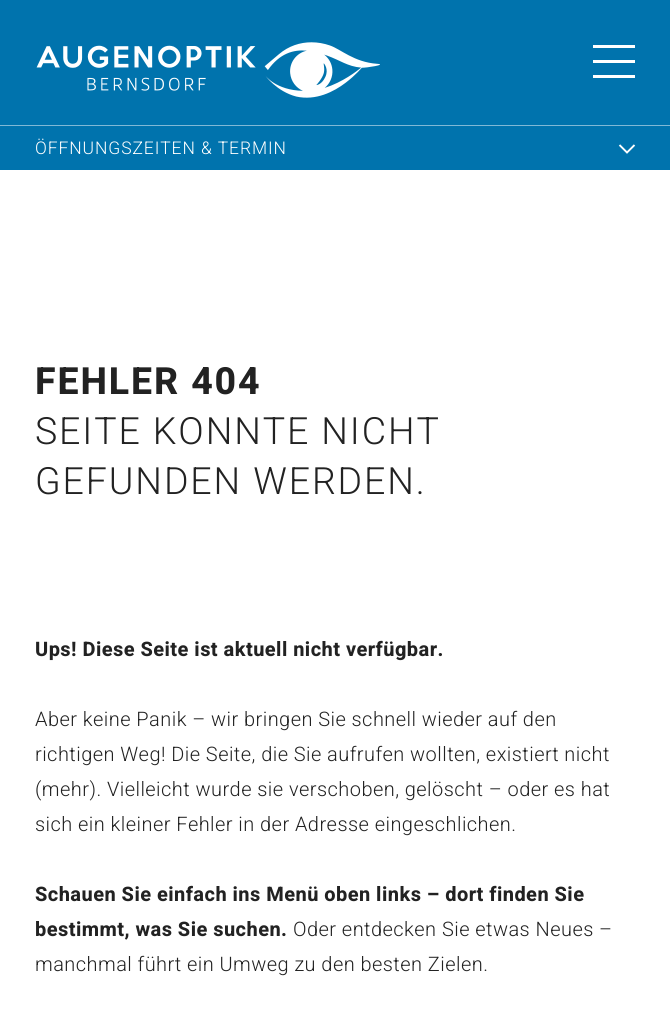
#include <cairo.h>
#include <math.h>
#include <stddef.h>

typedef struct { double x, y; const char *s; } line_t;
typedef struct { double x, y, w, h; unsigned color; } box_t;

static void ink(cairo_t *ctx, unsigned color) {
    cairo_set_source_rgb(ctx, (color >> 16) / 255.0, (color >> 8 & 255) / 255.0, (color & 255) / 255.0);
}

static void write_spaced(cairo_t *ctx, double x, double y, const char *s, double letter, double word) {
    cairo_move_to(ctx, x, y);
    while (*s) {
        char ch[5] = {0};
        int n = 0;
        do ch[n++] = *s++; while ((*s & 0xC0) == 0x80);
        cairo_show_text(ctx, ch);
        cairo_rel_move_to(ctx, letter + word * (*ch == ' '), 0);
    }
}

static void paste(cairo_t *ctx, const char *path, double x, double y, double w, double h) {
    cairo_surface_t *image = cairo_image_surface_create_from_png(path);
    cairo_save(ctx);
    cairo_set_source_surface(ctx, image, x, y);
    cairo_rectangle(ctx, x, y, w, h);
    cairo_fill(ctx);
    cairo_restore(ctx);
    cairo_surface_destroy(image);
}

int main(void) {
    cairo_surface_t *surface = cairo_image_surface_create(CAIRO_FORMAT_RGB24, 670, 1028);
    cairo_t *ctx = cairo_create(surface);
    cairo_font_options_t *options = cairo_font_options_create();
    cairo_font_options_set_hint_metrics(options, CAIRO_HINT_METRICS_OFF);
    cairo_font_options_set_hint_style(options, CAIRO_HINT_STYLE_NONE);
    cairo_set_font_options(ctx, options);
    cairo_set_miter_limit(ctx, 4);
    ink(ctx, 0xFFFFFF);
    cairo_paint(ctx);
    ink(ctx, 0x0073AD);
    cairo_rectangle(ctx, 0, 0, 670, 170);
    cairo_fill(ctx);
    paste(ctx, "media/1.png", 36, 42, 344, 56);
    {
        static const box_t items[] = {
            {593, 45, 42, 3, 0xFFFFFF},
            {593, 60, 42, 3, 0xFFFFFF},
            {593, 75, 42, 3, 0xFFFFFF},
            {0, 125, 670, 1, 0x80B9D6},
        };
        for (size_t i = 0; i < sizeof items / sizeof *items; i++) {
            ink(ctx, items[i].color);
            cairo_rectangle(ctx, items[i].x, items[i].y, items[i].w, items[i].h);
            cairo_fill(ctx);
        }
    }
    cairo_select_font_face(ctx, "Heebo Light", CAIRO_FONT_SLANT_NORMAL, CAIRO_FONT_WEIGHT_NORMAL);
    cairo_set_font_size(ctx, 17.5);
    ink(ctx, 0xFFFFFF);
    write_spaced(ctx, 35, 154, "ÖFFNUNGSZEITEN & TERMIN", 0.9, 0);
    cairo_new_path(ctx);
    cairo_move_to(ctx, 619.5, 145);
    cairo_line_to(ctx, 627, 152.5);
    cairo_line_to(ctx, 634.5, 145);
    cairo_set_line_width(ctx, 1.9);
    cairo_stroke(ctx);
    cairo_select_font_face(ctx, "Heebo", CAIRO_FONT_SLANT_NORMAL, CAIRO_FONT_WEIGHT_BOLD);
    cairo_set_font_size(ctx, 37.5);
    ink(ctx, 0x222222);
    write_spaced(ctx, 35, 394, "FEHLER 404", 1.9, 0);
    cairo_select_font_face(ctx, "Heebo Light", CAIRO_FONT_SLANT_NORMAL, CAIRO_FONT_WEIGHT_NORMAL);
    write_spaced(ctx, 35, 444, "SEITE KONNTE NICHT", 1.9, 0);
    write_spaced(ctx, 35, 494, "GEFUNDEN WERDEN.", 1.9, 0);
    cairo_select_font_face(ctx, "Heebo", CAIRO_FONT_SLANT_NORMAL, CAIRO_FONT_WEIGHT_BOLD);
    cairo_set_font_size(ctx, 20);
    write_spaced(ctx, 35, 656, "Ups! Diese Seite ist aktuell nicht verfügbar.", 0.45, 0);
    cairo_select_font_face(ctx, "Heebo Light", CAIRO_FONT_SLANT_NORMAL, CAIRO_FONT_WEIGHT_NORMAL);
    {
        static const line_t items[] = {
            {35, 726, "Aber keine Panik – wir bringen Sie schnell wieder auf den"},
            {35, 761, "richtigen Weg! Die Seite, die Sie aufrufen wollten, existiert nicht"},
            {35, 796, "(mehr). Vielleicht wurde sie verschoben, gelöscht – oder es hat"},
            {35, 831, "sich ein kleiner Fehler in der Adresse eingeschlichen."},
        };
        for (size_t i = 0; i < sizeof items / sizeof *items; i++) {
            write_spaced(ctx, items[i].x, items[i].y, items[i].s, 0.45, 0);
        }
    }
    cairo_select_font_face(ctx, "Heebo", CAIRO_FONT_SLANT_NORMAL, CAIRO_FONT_WEIGHT_BOLD);
    write_spaced(ctx, 35, 901, "Schauen Sie einfach ins Menü oben links – dort finden Sie", 0.45, 0);
    write_spaced(ctx, 35, 936, "bestimmt, was Sie suchen.", 0.45, 0);
    cairo_select_font_face(ctx, "Heebo Light", CAIRO_FONT_SLANT_NORMAL, CAIRO_FONT_WEIGHT_NORMAL);
    write_spaced(ctx, 293, 936, "Oder entdecken Sie etwas Neues –", 0.45, 0);
    write_spaced(ctx, 35, 971, "manchmal führt ein Umweg zu den besten Zielen.", 0.45, 0);
    cairo_surface_write_to_png(surface, "image.png");
    cairo_font_options_destroy(options);
    cairo_destroy(ctx);
    cairo_surface_destroy(surface);
    return 0;
}
